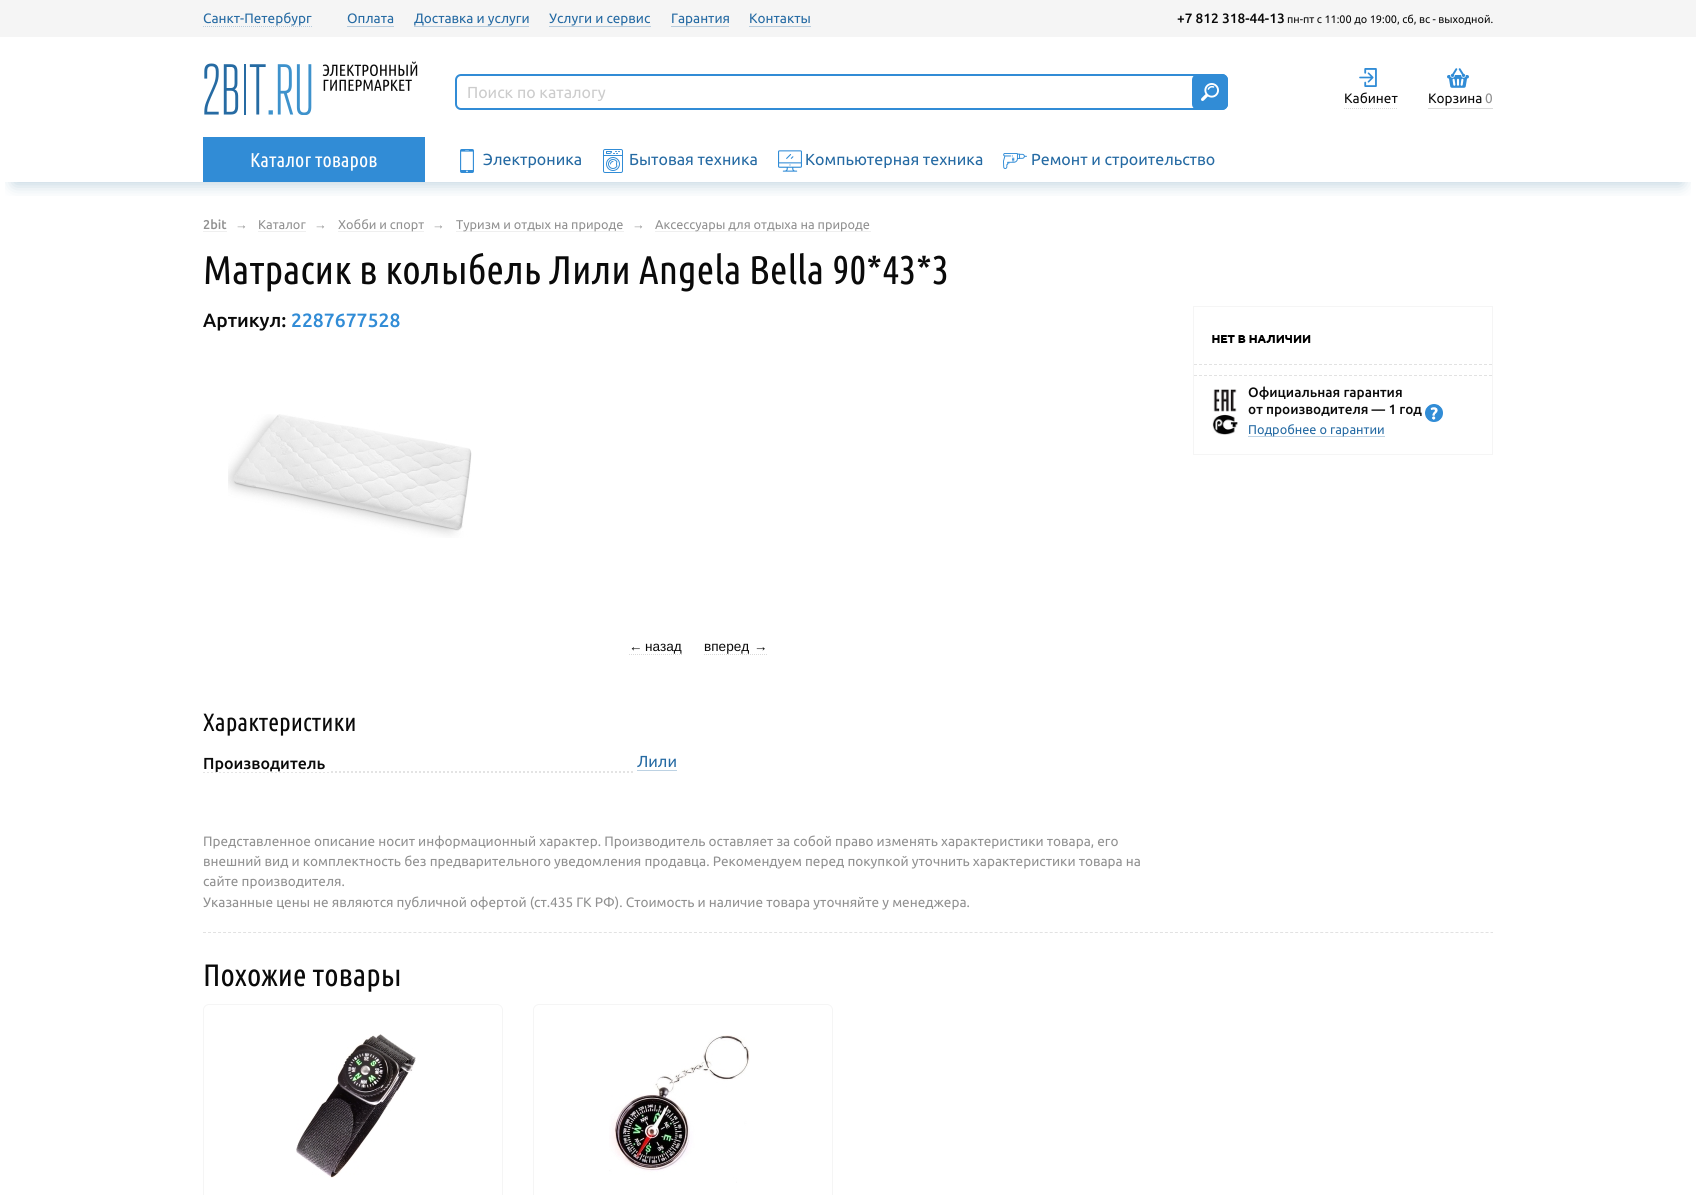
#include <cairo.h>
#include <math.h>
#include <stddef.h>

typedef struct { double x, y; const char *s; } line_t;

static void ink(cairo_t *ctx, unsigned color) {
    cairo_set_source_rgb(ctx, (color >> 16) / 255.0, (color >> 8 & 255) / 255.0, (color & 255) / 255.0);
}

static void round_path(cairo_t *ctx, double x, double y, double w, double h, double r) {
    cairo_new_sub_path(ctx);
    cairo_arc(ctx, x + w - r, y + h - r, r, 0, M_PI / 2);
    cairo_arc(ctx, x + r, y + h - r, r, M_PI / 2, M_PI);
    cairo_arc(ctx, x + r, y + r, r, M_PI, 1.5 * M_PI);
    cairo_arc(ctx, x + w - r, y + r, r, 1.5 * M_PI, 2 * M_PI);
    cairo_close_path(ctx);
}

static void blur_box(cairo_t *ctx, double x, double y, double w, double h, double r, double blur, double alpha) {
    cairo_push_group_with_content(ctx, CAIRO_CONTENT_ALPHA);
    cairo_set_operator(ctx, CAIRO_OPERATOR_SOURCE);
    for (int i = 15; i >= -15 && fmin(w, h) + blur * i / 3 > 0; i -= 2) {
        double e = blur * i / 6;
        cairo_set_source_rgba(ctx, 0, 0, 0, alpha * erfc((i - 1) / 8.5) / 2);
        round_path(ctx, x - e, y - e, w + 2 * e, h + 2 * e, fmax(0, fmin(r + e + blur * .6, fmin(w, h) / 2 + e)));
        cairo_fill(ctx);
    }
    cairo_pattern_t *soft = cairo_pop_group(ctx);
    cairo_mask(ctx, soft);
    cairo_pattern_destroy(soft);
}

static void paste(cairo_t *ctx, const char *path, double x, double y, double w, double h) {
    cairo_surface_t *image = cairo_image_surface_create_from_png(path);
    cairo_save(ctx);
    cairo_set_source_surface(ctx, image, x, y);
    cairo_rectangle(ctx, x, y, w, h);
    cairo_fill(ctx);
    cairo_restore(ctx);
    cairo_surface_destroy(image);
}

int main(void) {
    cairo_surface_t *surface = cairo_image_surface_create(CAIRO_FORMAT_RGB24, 1696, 1195);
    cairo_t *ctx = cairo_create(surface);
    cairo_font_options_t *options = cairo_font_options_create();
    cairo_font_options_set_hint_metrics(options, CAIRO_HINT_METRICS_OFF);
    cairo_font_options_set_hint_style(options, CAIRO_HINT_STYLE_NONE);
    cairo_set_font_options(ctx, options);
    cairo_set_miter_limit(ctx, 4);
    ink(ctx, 0xFFFFFF);
    cairo_paint(ctx);
    ink(ctx, 0xF5F5F5);
    cairo_rectangle(ctx, 0, 0, 1696, 37);
    cairo_fill(ctx);
    cairo_select_font_face(ctx, "Ubuntu", CAIRO_FONT_SLANT_NORMAL, CAIRO_FONT_WEIGHT_NORMAL);
    cairo_set_font_size(ctx, 13.6);
    ink(ctx, 0x256AA3);
    cairo_move_to(ctx, 203, 23);
    cairo_show_text(ctx, "Санкт-Петербург");
    cairo_new_path(ctx);
    cairo_move_to(ctx, 203, 26.5);
    cairo_line_to(ctx, 312, 26.5);
    ink(ctx, 0xB6CBDC);
    cairo_set_line_width(ctx, 1);
    cairo_set_dash(ctx, (double[]){1, 1}, 2, 0);
    cairo_stroke(ctx);
    ink(ctx, 0x256AA3);
    cairo_move_to(ctx, 347, 23);
    cairo_show_text(ctx, "Оплата");
    ink(ctx, 0xB6CBDC);
    cairo_rectangle(ctx, 347, 26, 47, 1);
    cairo_fill(ctx);
    ink(ctx, 0x256AA3);
    cairo_move_to(ctx, 414, 23);
    cairo_show_text(ctx, "Доставка и услуги");
    ink(ctx, 0xB6CBDC);
    cairo_rectangle(ctx, 414, 26, 115, 1);
    cairo_fill(ctx);
    ink(ctx, 0x256AA3);
    cairo_move_to(ctx, 549, 23);
    cairo_show_text(ctx, "Услуги и сервис");
    ink(ctx, 0xB6CBDC);
    cairo_rectangle(ctx, 549, 26, 102, 1);
    cairo_fill(ctx);
    ink(ctx, 0x256AA3);
    cairo_move_to(ctx, 671, 23);
    cairo_show_text(ctx, "Гарантия");
    ink(ctx, 0xB6CBDC);
    cairo_rectangle(ctx, 671, 26, 58, 1);
    cairo_fill(ctx);
    ink(ctx, 0x256AA3);
    cairo_move_to(ctx, 749, 23);
    cairo_show_text(ctx, "Контакты");
    ink(ctx, 0xB6CBDC);
    cairo_rectangle(ctx, 749, 26, 62, 1);
    cairo_fill(ctx);
    cairo_select_font_face(ctx, "Ubuntu Medium", CAIRO_FONT_SLANT_NORMAL, CAIRO_FONT_WEIGHT_NORMAL);
    ink(ctx, 0x0A0A0A);
    cairo_move_to(ctx, 1177, 23);
    cairo_show_text(ctx, "+7 812 318-44-13");
    cairo_select_font_face(ctx, "Ubuntu", CAIRO_FONT_SLANT_NORMAL, CAIRO_FONT_WEIGHT_NORMAL);
    cairo_set_font_size(ctx, 10.9);
    cairo_move_to(ctx, 1287, 23);
    cairo_show_text(ctx, "пн-пт с 11:00 до 19:00, сб, вс - выходной.");
    paste(ctx, "media/1.png", 204, 61, 214, 54);
    round_path(ctx, 456, 75, 771, 34, 5);
    ink(ctx, 0x318CD6);
    cairo_set_line_width(ctx, 2);
    cairo_set_dash(ctx, NULL, 0, 0);
    cairo_stroke(ctx);
    cairo_set_font_size(ctx, 16);
    ink(ctx, 0xCCCCCC);
    cairo_move_to(ctx, 467, 98);
    cairo_show_text(ctx, "Поиск по каталогу");
    ink(ctx, 0x318CD6);
    round_path(ctx, 1192, 74, 36, 36, 6);
    cairo_fill(ctx);
    paste(ctx, "media/2.png", 1201, 83, 18, 18);
    cairo_new_path(ctx);
    cairo_move_to(ctx, 1344, 108.5);
    cairo_line_to(ctx, 1398, 108.5);
    ink(ctx, 0xDADADA);
    cairo_set_line_width(ctx, 1);
    cairo_set_dash(ctx, (double[]){1, 1}, 2, 0);
    cairo_stroke(ctx);
    paste(ctx, "media/3.png", 1359, 68, 18, 19);
    cairo_set_font_size(ctx, 13.6);
    ink(ctx, 0x0A0A0A);
    cairo_move_to(ctx, 1344, 103);
    cairo_show_text(ctx, "Кабинет");
    ink(ctx, 0xDADADA);
    cairo_rectangle(ctx, 1428, 108, 65, 1);
    cairo_fill(ctx);
    paste(ctx, "media/4.png", 1447, 68, 22, 20);
    ink(ctx, 0x0A0A0A);
    cairo_move_to(ctx, 1428, 103);
    cairo_show_text(ctx, "Корзина");
    ink(ctx, 0x919191);
    cairo_move_to(ctx, 1485, 103);
    cairo_show_text(ctx, "0");
    cairo_save(ctx);
    cairo_rectangle(ctx, 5, 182, 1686, 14);
    cairo_clip(ctx);
    ink(ctx, 0x1D628C);
    blur_box(ctx, 14, 167, 1668, 17, 0, 8, 0.3);
    cairo_restore(ctx);
    ink(ctx, 0x318CD6);
    cairo_rectangle(ctx, 203, 137, 222, 45);
    cairo_fill(ctx);
    cairo_select_font_face(ctx, "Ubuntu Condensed", CAIRO_FONT_SLANT_NORMAL, CAIRO_FONT_WEIGHT_NORMAL);
    cairo_set_font_size(ctx, 20);
    ink(ctx, 0xFEFEFE);
    cairo_move_to(ctx, 250, 167);
    cairo_show_text(ctx, "Каталог товаров");
    paste(ctx, "media/5.png", 460, 149, 14, 24);
    cairo_select_font_face(ctx, "Ubuntu", CAIRO_FONT_SLANT_NORMAL, CAIRO_FONT_WEIGHT_NORMAL);
    cairo_set_font_size(ctx, 16);
    ink(ctx, 0x256AA3);
    cairo_move_to(ctx, 483, 165);
    cairo_show_text(ctx, "Электроника");
    paste(ctx, "media/6.png", 603, 149, 20, 24);
    cairo_move_to(ctx, 629, 165);
    cairo_show_text(ctx, "Бытовая техника");
    paste(ctx, "media/7.png", 778, 150, 24, 22);
    cairo_move_to(ctx, 805, 165);
    cairo_show_text(ctx, "Компьютерная техника");
    paste(ctx, "media/8.png", 1003, 153, 24, 16);
    cairo_move_to(ctx, 1031, 165);
    cairo_show_text(ctx, "Ремонт и строительство");
    ink(ctx, 0xEFEFEF);
    cairo_rectangle(ctx, 203, 231, 24, 1);
    cairo_fill(ctx);
    cairo_select_font_face(ctx, "Ubuntu Medium", CAIRO_FONT_SLANT_NORMAL, CAIRO_FONT_WEIGHT_NORMAL);
    cairo_set_font_size(ctx, 12.75);
    ink(ctx, 0x919191);
    cairo_move_to(ctx, 203, 229);
    cairo_show_text(ctx, "2bit");
    cairo_select_font_face(ctx, "Liberation Sans", CAIRO_FONT_SLANT_NORMAL, CAIRO_FONT_WEIGHT_NORMAL);
    cairo_move_to(ctx, 235, 229);
    cairo_show_text(ctx, "→");
    ink(ctx, 0xEFEFEF);
    cairo_rectangle(ctx, 258, 231, 48, 1);
    cairo_fill(ctx);
    cairo_select_font_face(ctx, "Ubuntu", CAIRO_FONT_SLANT_NORMAL, CAIRO_FONT_WEIGHT_NORMAL);
    ink(ctx, 0x919191);
    cairo_move_to(ctx, 258, 229);
    cairo_show_text(ctx, "Каталог");
    cairo_select_font_face(ctx, "Liberation Sans", CAIRO_FONT_SLANT_NORMAL, CAIRO_FONT_WEIGHT_NORMAL);
    cairo_move_to(ctx, 314, 229);
    cairo_show_text(ctx, "→");
    ink(ctx, 0xEFEFEF);
    cairo_rectangle(ctx, 338, 231, 86, 1);
    cairo_fill(ctx);
    cairo_select_font_face(ctx, "Ubuntu", CAIRO_FONT_SLANT_NORMAL, CAIRO_FONT_WEIGHT_NORMAL);
    ink(ctx, 0x919191);
    cairo_move_to(ctx, 338, 229);
    cairo_show_text(ctx, "Хобби и спорт");
    cairo_select_font_face(ctx, "Liberation Sans", CAIRO_FONT_SLANT_NORMAL, CAIRO_FONT_WEIGHT_NORMAL);
    cairo_move_to(ctx, 432, 229);
    cairo_show_text(ctx, "→");
    ink(ctx, 0xEFEFEF);
    cairo_rectangle(ctx, 456, 231, 168, 1);
    cairo_fill(ctx);
    cairo_select_font_face(ctx, "Ubuntu", CAIRO_FONT_SLANT_NORMAL, CAIRO_FONT_WEIGHT_NORMAL);
    ink(ctx, 0x919191);
    cairo_move_to(ctx, 456, 229);
    cairo_show_text(ctx, "Туризм и отдых на природе");
    cairo_select_font_face(ctx, "Liberation Sans", CAIRO_FONT_SLANT_NORMAL, CAIRO_FONT_WEIGHT_NORMAL);
    cairo_move_to(ctx, 632, 229);
    cairo_show_text(ctx, "→");
    ink(ctx, 0xEFEFEF);
    cairo_rectangle(ctx, 655, 231, 216, 1);
    cairo_fill(ctx);
    cairo_select_font_face(ctx, "Ubuntu", CAIRO_FONT_SLANT_NORMAL, CAIRO_FONT_WEIGHT_NORMAL);
    ink(ctx, 0x919191);
    cairo_move_to(ctx, 655, 229);
    cairo_show_text(ctx, "Аксессуары для отдыха на природе");
    cairo_select_font_face(ctx, "Ubuntu Condensed", CAIRO_FONT_SLANT_NORMAL, CAIRO_FONT_WEIGHT_NORMAL);
    cairo_set_font_size(ctx, 40);
    ink(ctx, 0x0A0A0A);
    cairo_move_to(ctx, 203, 284);
    cairo_show_text(ctx, "Матрасик в колыбель Лили Angela Bella 90*43*3");
    cairo_select_font_face(ctx, "Ubuntu Medium", CAIRO_FONT_SLANT_NORMAL, CAIRO_FONT_WEIGHT_NORMAL);
    cairo_set_font_size(ctx, 19.25);
    cairo_move_to(ctx, 203, 327);
    cairo_show_text(ctx, "Артикул:");
    ink(ctx, 0x318CD6);
    cairo_move_to(ctx, 291, 327);
    cairo_show_text(ctx, "2287677528");
    paste(ctx, "media/9.png", 228, 414, 244, 124);
    cairo_select_font_face(ctx, "Liberation Sans", CAIRO_FONT_SLANT_NORMAL, CAIRO_FONT_WEIGHT_NORMAL);
    cairo_set_font_size(ctx, 13.6);
    ink(ctx, 0x0A0A0A);
    cairo_move_to(ctx, 629, 651);
    cairo_show_text(ctx, "←");
    cairo_new_path(ctx);
    cairo_move_to(ctx, 629, 654.5);
    cairo_line_to(ctx, 682, 654.5);
    ink(ctx, 0xDADADA);
    cairo_stroke(ctx);
    ink(ctx, 0x0A0A0A);
    {
        static const line_t items[] = {
            {645, 651, "назад"},
            {704, 651, "вперед"},
            {754, 651, "→"},
        };
        for (size_t i = 0; i < sizeof items / sizeof *items; i++) {
            cairo_move_to(ctx, items[i].x, items[i].y);
            cairo_show_text(ctx, items[i].s);
        }
    }
    cairo_new_path(ctx);
    cairo_move_to(ctx, 704, 654.5);
    cairo_line_to(ctx, 767, 654.5);
    ink(ctx, 0xDADADA);
    cairo_stroke(ctx);
    cairo_rectangle(ctx, 1193.5, 306.5, 299, 148);
    ink(ctx, 0xF5F5F5);
    cairo_set_dash(ctx, NULL, 0, 0);
    cairo_stroke(ctx);
    paste(ctx, "media/10.png", 1212, 335, 99, 8);
    cairo_new_path(ctx);
    cairo_move_to(ctx, 1194, 364.5);
    cairo_line_to(ctx, 1492, 364.5);
    ink(ctx, 0xE2E2E2);
    cairo_set_dash(ctx, (double[]){3, 2}, 2, 0);
    cairo_stroke(ctx);
    cairo_new_path(ctx);
    cairo_move_to(ctx, 1194, 375.5);
    cairo_line_to(ctx, 1492, 375.5);
    cairo_stroke(ctx);
    paste(ctx, "media/11.png", 1212, 389, 26, 46);
    cairo_select_font_face(ctx, "Ubuntu Medium", CAIRO_FONT_SLANT_NORMAL, CAIRO_FONT_WEIGHT_NORMAL);
    ink(ctx, 0x0A0A0A);
    cairo_move_to(ctx, 1248, 397);
    cairo_show_text(ctx, "Официальная гарантия");
    cairo_move_to(ctx, 1248, 414);
    cairo_show_text(ctx, "от производителя — 1 год");
    paste(ctx, "media/12.png", 1425, 404, 18, 18);
    ink(ctx, 0xBDD2E3);
    cairo_rectangle(ctx, 1248, 436, 137, 1);
    cairo_fill(ctx);
    cairo_select_font_face(ctx, "Ubuntu", CAIRO_FONT_SLANT_NORMAL, CAIRO_FONT_WEIGHT_NORMAL);
    cairo_set_font_size(ctx, 12.75);
    ink(ctx, 0x256AA3);
    cairo_move_to(ctx, 1248, 434);
    cairo_show_text(ctx, "Подробнее о гарантии");
    cairo_select_font_face(ctx, "Ubuntu Condensed", CAIRO_FONT_SLANT_NORMAL, CAIRO_FONT_WEIGHT_NORMAL);
    cairo_set_font_size(ctx, 25);
    ink(ctx, 0x0A0A0A);
    cairo_move_to(ctx, 203, 731);
    cairo_show_text(ctx, "Характеристики");
    cairo_new_path(ctx);
    cairo_move_to(ctx, 203, 772);
    cairo_line_to(ctx, 633, 772);
    ink(ctx, 0xE4E4E4);
    cairo_set_line_width(ctx, 2);
    cairo_set_dash(ctx, (double[]){2, 2}, 2, 0);
    cairo_stroke(ctx);
    ink(ctx, 0xFFFFFF);
    cairo_rectangle(ctx, 203, 771, 126, 1);
    cairo_fill(ctx);
    cairo_select_font_face(ctx, "Ubuntu Medium", CAIRO_FONT_SLANT_NORMAL, CAIRO_FONT_WEIGHT_NORMAL);
    cairo_set_font_size(ctx, 16);
    ink(ctx, 0x0A0A0A);
    cairo_move_to(ctx, 203, 769);
    cairo_show_text(ctx, "Производитель");
    cairo_select_font_face(ctx, "Ubuntu", CAIRO_FONT_SLANT_NORMAL, CAIRO_FONT_WEIGHT_NORMAL);
    ink(ctx, 0x256AA3);
    cairo_move_to(ctx, 637, 767);
    cairo_show_text(ctx, "Лили");
    ink(ctx, 0xBDD2E3);
    cairo_rectangle(ctx, 637, 770, 40, 1);
    cairo_fill(ctx);
    cairo_set_font_size(ctx, 13.6);
    ink(ctx, 0x919191);
    {
        static const line_t items[] = {
            {203, 846, "Представленное описание носит информационный характер. Производитель оставляет за собой право изменять характеристики товара, его"},
            {203, 866, "внешний вид и комплектность без предварительного уведомления продавца. Рекомендуем перед покупкой уточнить характеристики товара на"},
            {203, 886, "сайте производителя."},
            {203, 907, "Указанные цены не являются публичной офертой (ст.435 ГК РФ). Стоимость и наличие товара уточняйте у менеджера."},
        };
        for (size_t i = 0; i < sizeof items / sizeof *items; i++) {
            cairo_move_to(ctx, items[i].x, items[i].y);
            cairo_show_text(ctx, items[i].s);
        }
    }
    cairo_new_path(ctx);
    cairo_move_to(ctx, 203, 932.5);
    cairo_line_to(ctx, 1493, 932.5);
    ink(ctx, 0xE2E2E2);
    cairo_set_line_width(ctx, 1);
    cairo_set_dash(ctx, (double[]){3, 2.01}, 2, 0);
    cairo_stroke(ctx);
    cairo_select_font_face(ctx, "Ubuntu Condensed", CAIRO_FONT_SLANT_NORMAL, CAIRO_FONT_WEIGHT_NORMAL);
    cairo_set_font_size(ctx, 31);
    ink(ctx, 0x0A0A0A);
    cairo_move_to(ctx, 203, 986);
    cairo_show_text(ctx, "Похожие товары");
    round_path(ctx, 203.5, 1004.5, 299, 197, 5.5);
    ink(ctx, 0xF5F5F5);
    cairo_set_dash(ctx, NULL, 0, 0);
    cairo_stroke(ctx);
    paste(ctx, "media/13.png", 296, 1034, 120, 144);
    round_path(ctx, 533.5, 1004.5, 299, 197, 5.5);
    cairo_stroke(ctx);
    paste(ctx, "media/14.png", 609, 1035, 141, 148);
    cairo_surface_write_to_png(surface, "image.png");
    cairo_font_options_destroy(options);
    cairo_destroy(ctx);
    cairo_surface_destroy(surface);
    return 0;
}
